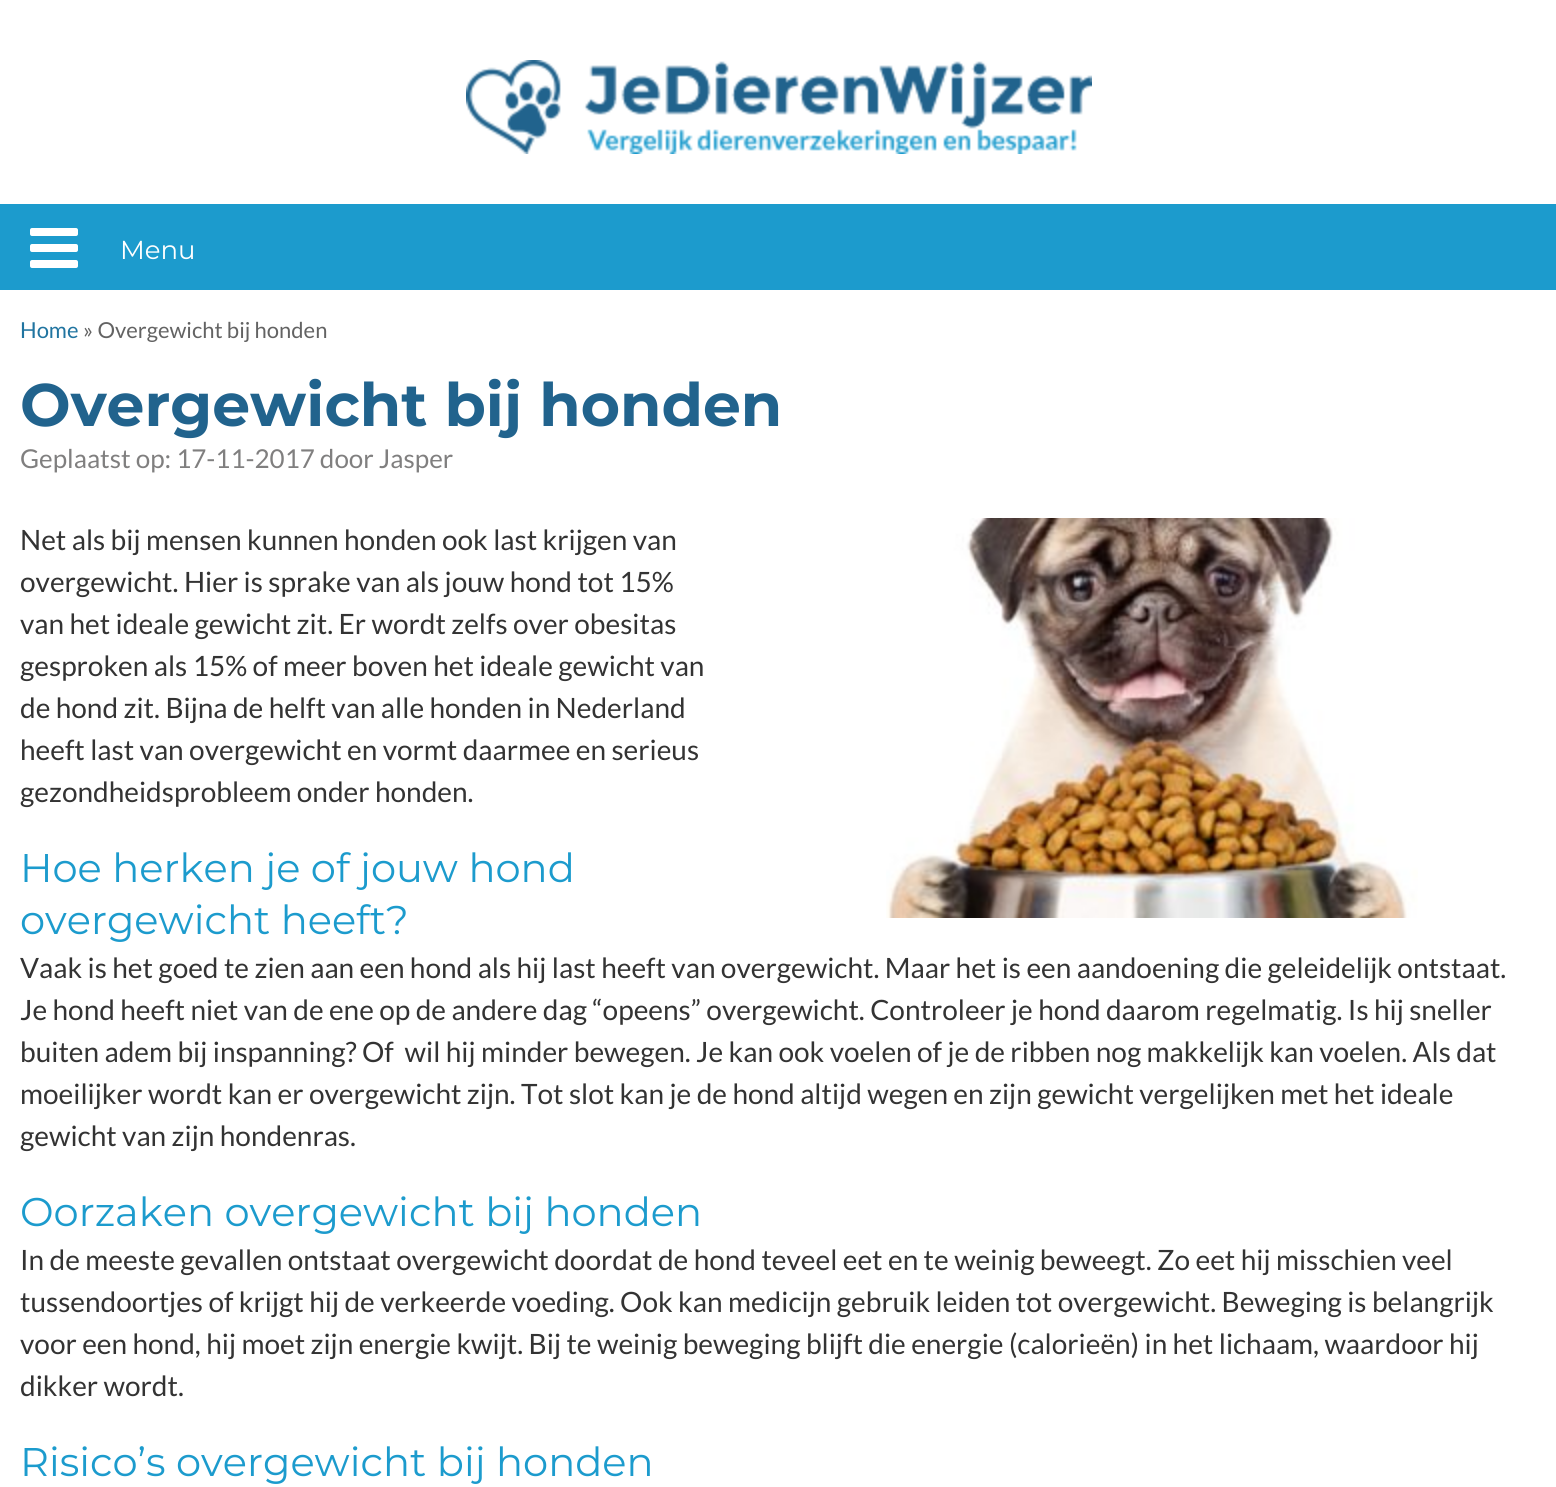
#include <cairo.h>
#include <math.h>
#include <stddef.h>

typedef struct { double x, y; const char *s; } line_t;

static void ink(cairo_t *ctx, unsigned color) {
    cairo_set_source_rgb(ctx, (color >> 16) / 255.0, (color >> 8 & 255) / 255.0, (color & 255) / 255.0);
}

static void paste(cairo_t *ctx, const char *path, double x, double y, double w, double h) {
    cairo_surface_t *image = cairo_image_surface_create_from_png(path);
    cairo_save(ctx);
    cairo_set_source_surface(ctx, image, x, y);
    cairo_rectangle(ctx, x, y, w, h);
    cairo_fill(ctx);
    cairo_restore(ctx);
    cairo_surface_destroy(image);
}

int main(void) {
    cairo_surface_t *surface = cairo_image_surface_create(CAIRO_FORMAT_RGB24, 1556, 1487);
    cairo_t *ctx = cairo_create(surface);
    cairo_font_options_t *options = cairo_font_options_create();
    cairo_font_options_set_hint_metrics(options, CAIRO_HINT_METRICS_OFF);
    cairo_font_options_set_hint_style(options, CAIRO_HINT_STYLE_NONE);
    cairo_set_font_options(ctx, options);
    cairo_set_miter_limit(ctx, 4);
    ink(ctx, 0xFFFFFF);
    cairo_paint(ctx);
    paste(ctx, "media/1.png", 466, 60, 626, 94);
    ink(ctx, 0x1C9BCD);
    cairo_rectangle(ctx, 0, 204, 1556, 86);
    cairo_fill(ctx);
    paste(ctx, "media/2.png", 30, 228, 48, 40);
    cairo_select_font_face(ctx, "Montserrat", CAIRO_FONT_SLANT_NORMAL, CAIRO_FONT_WEIGHT_NORMAL);
    cairo_set_font_size(ctx, 26);
    ink(ctx, 0xFFFFFF);
    cairo_move_to(ctx, 120, 259);
    cairo_show_text(ctx, "Menu");
    cairo_select_font_face(ctx, "Lato", CAIRO_FONT_SLANT_NORMAL, CAIRO_FONT_WEIGHT_NORMAL);
    cairo_set_font_size(ctx, 22);
    ink(ctx, 0x2074A0);
    cairo_move_to(ctx, 20, 338);
    cairo_show_text(ctx, "Home");
    ink(ctx, 0x636363);
    cairo_move_to(ctx, 83, 338);
    cairo_show_text(ctx, "» Overgewicht bij honden");
    cairo_select_font_face(ctx, "Montserrat", CAIRO_FONT_SLANT_NORMAL, CAIRO_FONT_WEIGHT_BOLD);
    cairo_set_font_size(ctx, 60);
    ink(ctx, 0x21638D);
    cairo_move_to(ctx, 20, 426);
    cairo_show_text(ctx, "Overgewicht bij honden");
    cairo_select_font_face(ctx, "Lato", CAIRO_FONT_SLANT_NORMAL, CAIRO_FONT_WEIGHT_NORMAL);
    cairo_set_font_size(ctx, 26);
    ink(ctx, 0x807F7F);
    cairo_move_to(ctx, 20, 468);
    cairo_show_text(ctx, "Geplaatst op: 17-11-2017 door Jasper");
    cairo_set_font_size(ctx, 28);
    ink(ctx, 0x333333);
    {
        static const line_t items[] = {
            {20, 550, "Net als bij mensen kunnen honden ook last krijgen van"},
            {20, 592, "overgewicht. Hier is sprake van als jouw hond tot 15%"},
            {20, 634, "van het ideale gewicht zit. Er wordt zelfs over obesitas"},
            {20, 676, "gesproken als 15% of meer boven het ideale gewicht van"},
            {20, 718, "de hond zit. Bijna de helft van alle honden in Nederland"},
            {20, 760, "heeft last van overgewicht en vormt daarmee en serieus"},
            {20, 802, "gezondheidsprobleem onder honden."},
        };
        for (size_t i = 0; i < sizeof items / sizeof *items; i++) {
            cairo_move_to(ctx, items[i].x, items[i].y);
            cairo_show_text(ctx, items[i].s);
        }
    }
    paste(ctx, "media/3.png", 886, 518, 532, 400);
    cairo_select_font_face(ctx, "Montserrat", CAIRO_FONT_SLANT_NORMAL, CAIRO_FONT_WEIGHT_NORMAL);
    cairo_set_font_size(ctx, 40);
    ink(ctx, 0x1C9BCD);
    cairo_move_to(ctx, 20, 882);
    cairo_show_text(ctx, "Hoe herken je of jouw hond");
    cairo_move_to(ctx, 20, 934);
    cairo_show_text(ctx, "overgewicht heeft?");
    cairo_select_font_face(ctx, "Lato", CAIRO_FONT_SLANT_NORMAL, CAIRO_FONT_WEIGHT_NORMAL);
    cairo_set_font_size(ctx, 28);
    ink(ctx, 0x333333);
    {
        static const line_t items[] = {
            {20, 978, "Vaak is het goed te zien aan een hond als hij last heeft van overgewicht. Maar het is een aandoening die geleidelijk ontstaat."},
            {20, 1020, "Je hond heeft niet van de ene op de andere dag “opeens” overgewicht. Controleer je hond daarom regelmatig. Is hij sneller"},
            {20, 1062, "buiten adem bij inspanning? Of  wil hij minder bewegen. Je kan ook voelen of je de ribben nog makkelijk kan voelen. Als dat"},
            {20, 1104, "moeilijker wordt kan er overgewicht zijn. Tot slot kan je de hond altijd wegen en zijn gewicht vergelijken met het ideale"},
            {20, 1146, "gewicht van zijn hondenras."},
        };
        for (size_t i = 0; i < sizeof items / sizeof *items; i++) {
            cairo_move_to(ctx, items[i].x, items[i].y);
            cairo_show_text(ctx, items[i].s);
        }
    }
    cairo_select_font_face(ctx, "Montserrat", CAIRO_FONT_SLANT_NORMAL, CAIRO_FONT_WEIGHT_NORMAL);
    cairo_set_font_size(ctx, 40);
    ink(ctx, 0x1C9BCD);
    cairo_move_to(ctx, 20, 1226);
    cairo_show_text(ctx, "Oorzaken overgewicht bij honden");
    cairo_select_font_face(ctx, "Lato", CAIRO_FONT_SLANT_NORMAL, CAIRO_FONT_WEIGHT_NORMAL);
    cairo_set_font_size(ctx, 28);
    ink(ctx, 0x333333);
    {
        static const line_t items[] = {
            {20, 1270, "In de meeste gevallen ontstaat overgewicht doordat de hond teveel eet en te weinig beweegt. Zo eet hij misschien veel"},
            {20, 1312, "tussendoortjes of krijgt hij de verkeerde voeding. Ook kan medicijn gebruik leiden tot overgewicht. Beweging is belangrijk"},
            {20, 1354, "voor een hond, hij moet zijn energie kwijt. Bij te weinig beweging blijft die energie (calorieën) in het lichaam, waardoor hij"},
            {20, 1396, "dikker wordt."},
        };
        for (size_t i = 0; i < sizeof items / sizeof *items; i++) {
            cairo_move_to(ctx, items[i].x, items[i].y);
            cairo_show_text(ctx, items[i].s);
        }
    }
    cairo_select_font_face(ctx, "Montserrat", CAIRO_FONT_SLANT_NORMAL, CAIRO_FONT_WEIGHT_NORMAL);
    cairo_set_font_size(ctx, 40);
    ink(ctx, 0x1C9BCD);
    cairo_move_to(ctx, 20, 1476);
    cairo_show_text(ctx, "Risico’s overgewicht bij honden");
    cairo_surface_write_to_png(surface, "image.png");
    cairo_font_options_destroy(options);
    cairo_destroy(ctx);
    cairo_surface_destroy(surface);
    return 0;
}
